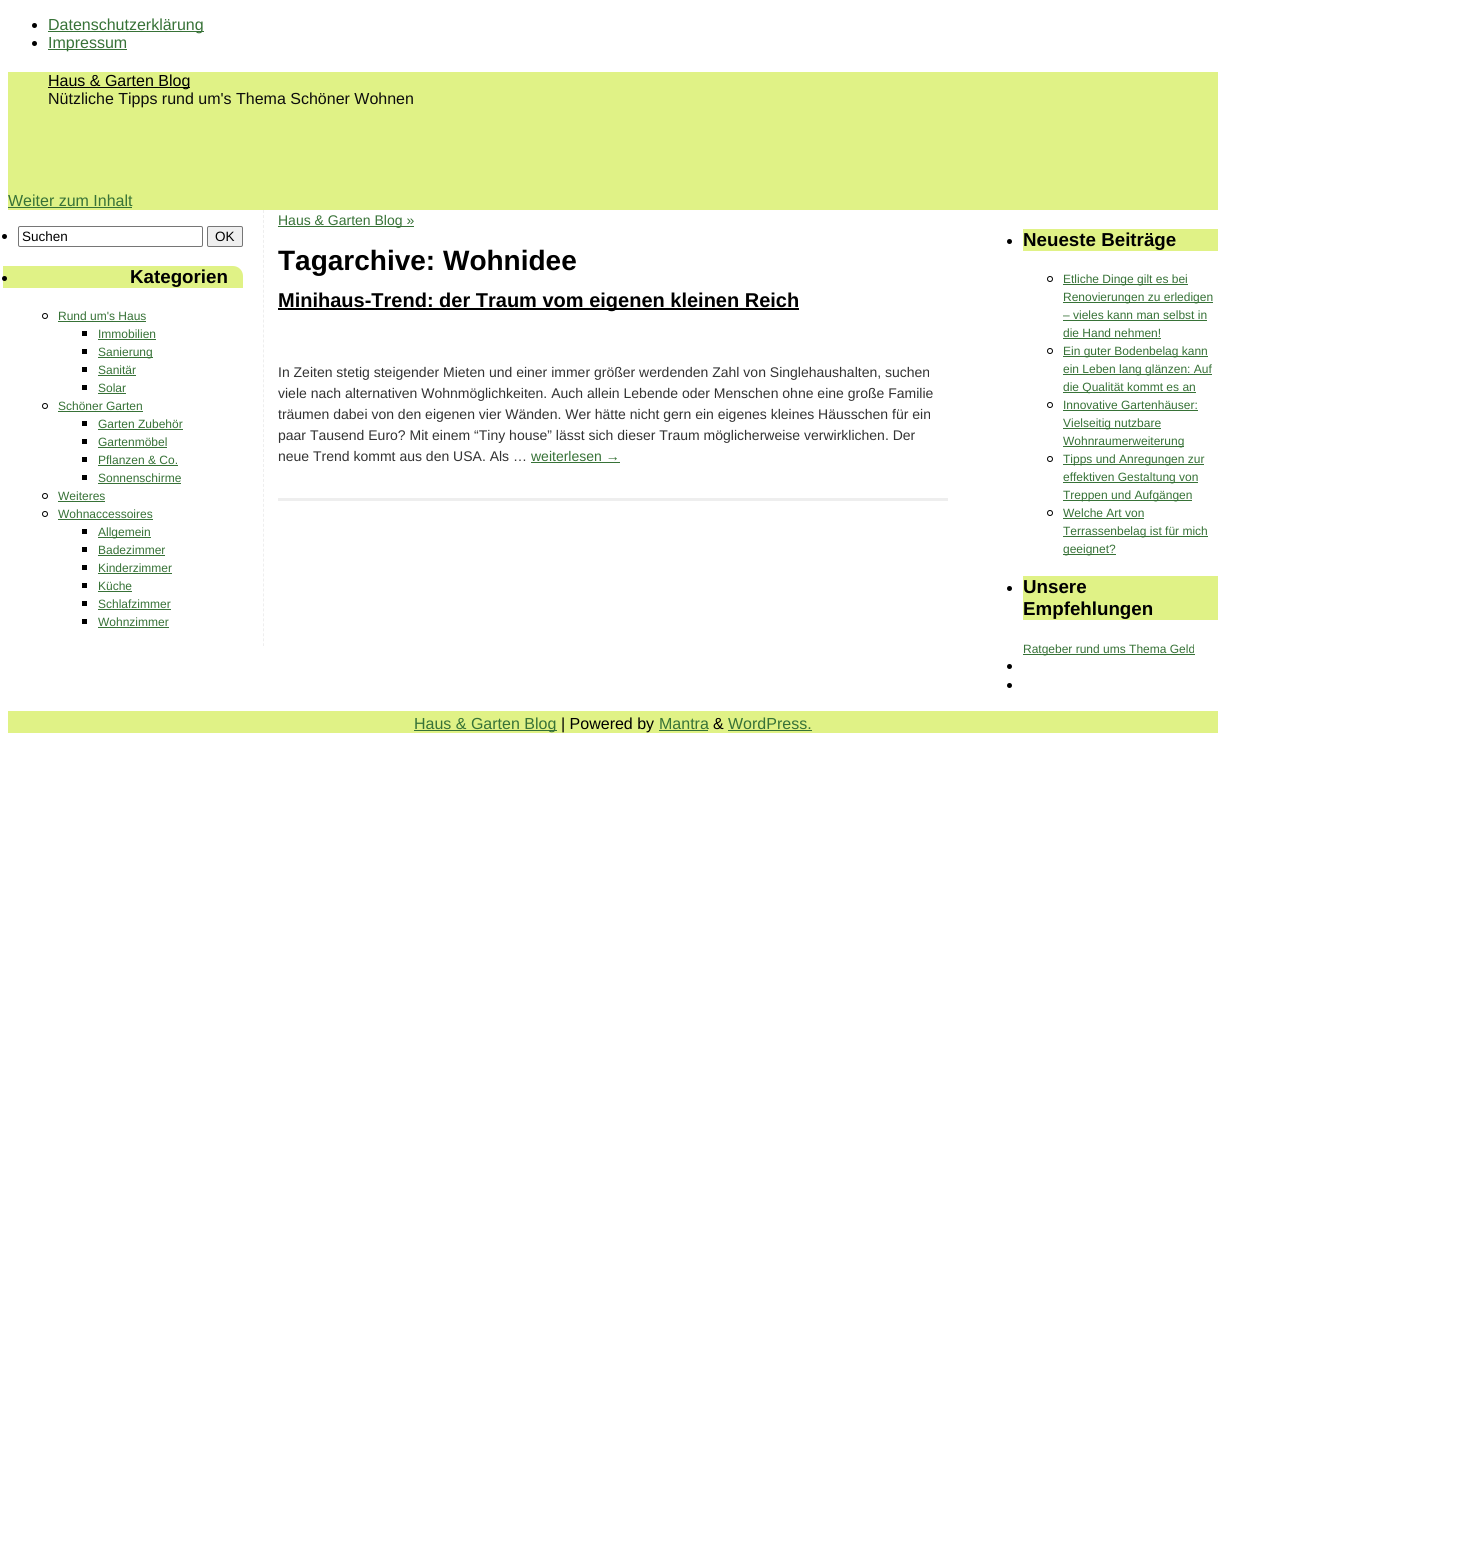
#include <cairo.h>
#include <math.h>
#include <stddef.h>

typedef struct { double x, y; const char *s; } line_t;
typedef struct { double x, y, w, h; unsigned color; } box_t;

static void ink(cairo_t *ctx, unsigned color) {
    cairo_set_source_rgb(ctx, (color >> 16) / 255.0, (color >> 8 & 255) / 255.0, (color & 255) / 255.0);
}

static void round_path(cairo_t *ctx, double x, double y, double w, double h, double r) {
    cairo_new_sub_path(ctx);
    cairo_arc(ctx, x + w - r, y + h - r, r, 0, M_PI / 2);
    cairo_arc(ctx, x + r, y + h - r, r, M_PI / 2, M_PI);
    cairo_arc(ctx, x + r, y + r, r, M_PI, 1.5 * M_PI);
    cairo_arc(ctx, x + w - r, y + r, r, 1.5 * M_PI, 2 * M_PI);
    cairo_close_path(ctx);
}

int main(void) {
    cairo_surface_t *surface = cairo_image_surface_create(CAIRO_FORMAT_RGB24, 1461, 1551);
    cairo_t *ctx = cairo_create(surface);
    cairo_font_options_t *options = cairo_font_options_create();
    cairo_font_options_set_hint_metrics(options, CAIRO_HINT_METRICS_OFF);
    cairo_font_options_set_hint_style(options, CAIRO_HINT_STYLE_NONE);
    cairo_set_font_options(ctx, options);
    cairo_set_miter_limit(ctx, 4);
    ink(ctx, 0xFFFFFF);
    cairo_paint(ctx);
    ink(ctx, 0x000000);
    cairo_arc(ctx, 34.5, 25.5, 2.5, 0, 2 * M_PI);
    cairo_fill(ctx);
    ink(ctx, 0x377237);
    cairo_rectangle(ctx, 48, 31, 156, 1);
    cairo_fill(ctx);
    cairo_select_font_face(ctx, "Liberation Sans", CAIRO_FONT_SLANT_NORMAL, CAIRO_FONT_WEIGHT_NORMAL);
    cairo_set_font_size(ctx, 16);
    cairo_move_to(ctx, 48, 30);
    cairo_show_text(ctx, "Datenschutzerklärung");
    ink(ctx, 0x000000);
    cairo_new_path(ctx);
    cairo_arc(ctx, 34.5, 43.5, 2.5, 0, 2 * M_PI);
    cairo_fill(ctx);
    ink(ctx, 0x377237);
    cairo_rectangle(ctx, 48, 49, 79, 1);
    cairo_fill(ctx);
    cairo_move_to(ctx, 48, 48);
    cairo_show_text(ctx, "Impressum");
    ink(ctx, 0xE0F286);
    cairo_rectangle(ctx, 8, 72, 1210, 138);
    cairo_fill(ctx);
    ink(ctx, 0x040404);
    cairo_rectangle(ctx, 48, 87, 142, 1);
    cairo_fill(ctx);
    ink(ctx, 0x000000);
    cairo_move_to(ctx, 48, 86);
    cairo_show_text(ctx, "Haus & Garten Blog");
    ink(ctx, 0x0D0D0D);
    cairo_move_to(ctx, 48, 104);
    cairo_show_text(ctx, "Nützliche Tipps rund um's Thema Schöner Wohnen");
    ink(ctx, 0x377237);
    cairo_move_to(ctx, 8, 206);
    cairo_show_text(ctx, "Weiter zum Inhalt");
    cairo_rectangle(ctx, 8, 207, 124, 1);
    cairo_fill(ctx);
    cairo_new_path(ctx);
    cairo_move_to(ctx, 263.5, 210);
    cairo_line_to(ctx, 263.5, 646);
    ink(ctx, 0xEEEEEE);
    cairo_set_line_width(ctx, 1);
    cairo_set_dash(ctx, (double[]){3, 1.98}, 2, 0);
    cairo_stroke(ctx);
    ink(ctx, 0x000000);
    cairo_arc(ctx, 4.5, 236.5, 2.5, 0, 2 * M_PI);
    cairo_fill(ctx);
    round_path(ctx, 18.5, 226.5, 184, 20, 1.5);
    ink(ctx, 0x767676);
    cairo_set_dash(ctx, NULL, 0, 0);
    cairo_stroke(ctx);
    cairo_set_font_size(ctx, 13.5);
    ink(ctx, 0x000000);
    cairo_move_to(ctx, 22, 241);
    cairo_show_text(ctx, "Suchen");
    ink(ctx, 0xEFEFEF);
    round_path(ctx, 207.5, 226.5, 35, 20, 1.5);
    cairo_fill_preserve(ctx);
    ink(ctx, 0x767676);
    cairo_stroke(ctx);
    ink(ctx, 0x000000);
    cairo_move_to(ctx, 215, 241);
    cairo_show_text(ctx, "OK");
    ink(ctx, 0xE0F286);
    cairo_new_path(ctx);
    cairo_move_to(ctx, 3, 266);
    cairo_line_to(ctx, 233, 266);
    cairo_curve_to(ctx, 238.5, 266, 243, 270.5, 243, 276);
    cairo_line_to(ctx, 243, 288);
    cairo_line_to(ctx, 3, 288);
    cairo_close_path(ctx);
    cairo_fill(ctx);
    ink(ctx, 0x000000);
    cairo_arc(ctx, 4.5, 278.5, 2.5, 0, 2 * M_PI);
    cairo_fill(ctx);
    cairo_select_font_face(ctx, "Liberation Sans", CAIRO_FONT_SLANT_NORMAL, CAIRO_FONT_WEIGHT_BOLD);
    cairo_set_font_size(ctx, 18.75);
    cairo_move_to(ctx, 130, 283);
    cairo_show_text(ctx, "Kategorien");
    cairo_new_path(ctx);
    cairo_arc(ctx, 45, 316, 2.5, 0, 2 * M_PI);
    cairo_stroke(ctx);
    cairo_select_font_face(ctx, "Liberation Sans", CAIRO_FONT_SLANT_NORMAL, CAIRO_FONT_WEIGHT_NORMAL);
    cairo_set_font_size(ctx, 12);
    ink(ctx, 0x377237);
    cairo_move_to(ctx, 58, 320);
    cairo_show_text(ctx, "Rund um's Haus");
    cairo_rectangle(ctx, 58, 321, 88, 1);
    cairo_fill(ctx);
    ink(ctx, 0x000000);
    cairo_rectangle(ctx, 82, 331, 5, 5);
    cairo_fill(ctx);
    ink(ctx, 0x377237);
    cairo_move_to(ctx, 98, 338);
    cairo_show_text(ctx, "Immobilien");
    {
        static const box_t items[] = {
            {98, 339, 58, 1, 0x377237},
            {82, 349, 5, 5, 0x000000},
            {98, 357, 55, 1, 0x377237},
        };
        for (size_t i = 0; i < sizeof items / sizeof *items; i++) {
            ink(ctx, items[i].color);
            cairo_rectangle(ctx, items[i].x, items[i].y, items[i].w, items[i].h);
            cairo_fill(ctx);
        }
    }
    cairo_move_to(ctx, 98, 356);
    cairo_show_text(ctx, "Sanierung");
    ink(ctx, 0x000000);
    cairo_rectangle(ctx, 82, 367, 5, 5);
    cairo_fill(ctx);
    ink(ctx, 0x377237);
    cairo_move_to(ctx, 98, 374);
    cairo_show_text(ctx, "Sanitär");
    cairo_rectangle(ctx, 98, 375, 38, 1);
    cairo_fill(ctx);
    ink(ctx, 0x000000);
    cairo_rectangle(ctx, 82, 385, 5, 5);
    cairo_fill(ctx);
    ink(ctx, 0x377237);
    cairo_move_to(ctx, 98, 392);
    cairo_show_text(ctx, "Solar");
    cairo_rectangle(ctx, 98, 393, 28, 1);
    cairo_fill(ctx);
    cairo_arc(ctx, 45, 406, 2.5, 0, 2 * M_PI);
    ink(ctx, 0x000000);
    cairo_stroke(ctx);
    ink(ctx, 0x377237);
    cairo_move_to(ctx, 58, 410);
    cairo_show_text(ctx, "Schöner Garten");
    cairo_rectangle(ctx, 58, 411, 85, 1);
    cairo_fill(ctx);
    ink(ctx, 0x000000);
    cairo_rectangle(ctx, 82, 421, 5, 5);
    cairo_fill(ctx);
    ink(ctx, 0x377237);
    cairo_move_to(ctx, 98, 428);
    cairo_show_text(ctx, "Garten Zubehör");
    cairo_rectangle(ctx, 98, 429, 85, 1);
    cairo_fill(ctx);
    ink(ctx, 0x000000);
    cairo_rectangle(ctx, 82, 439, 5, 5);
    cairo_fill(ctx);
    ink(ctx, 0x377237);
    cairo_move_to(ctx, 98, 446);
    cairo_show_text(ctx, "Gartenmöbel");
    cairo_rectangle(ctx, 98, 447, 69, 1);
    cairo_fill(ctx);
    ink(ctx, 0x000000);
    cairo_rectangle(ctx, 82, 457, 5, 5);
    cairo_fill(ctx);
    ink(ctx, 0x377237);
    cairo_move_to(ctx, 98, 464);
    cairo_show_text(ctx, "Pflanzen & Co.");
    cairo_rectangle(ctx, 98, 465, 80, 1);
    cairo_fill(ctx);
    ink(ctx, 0x000000);
    cairo_rectangle(ctx, 82, 475, 5, 5);
    cairo_fill(ctx);
    ink(ctx, 0x377237);
    cairo_move_to(ctx, 98, 482);
    cairo_show_text(ctx, "Sonnenschirme");
    cairo_rectangle(ctx, 98, 483, 83, 1);
    cairo_fill(ctx);
    cairo_arc(ctx, 45, 496, 2.5, 0, 2 * M_PI);
    ink(ctx, 0x000000);
    cairo_stroke(ctx);
    ink(ctx, 0x377237);
    cairo_move_to(ctx, 58, 500);
    cairo_show_text(ctx, "Weiteres");
    cairo_rectangle(ctx, 58, 501, 47, 1);
    cairo_fill(ctx);
    cairo_arc(ctx, 45, 514, 2.5, 0, 2 * M_PI);
    ink(ctx, 0x000000);
    cairo_stroke(ctx);
    ink(ctx, 0x377237);
    cairo_move_to(ctx, 58, 518);
    cairo_show_text(ctx, "Wohnaccessoires");
    {
        static const box_t items[] = {
            {58, 519, 95, 1, 0x377237},
            {82, 529, 5, 5, 0x000000},
            {98, 537, 53, 1, 0x377237},
        };
        for (size_t i = 0; i < sizeof items / sizeof *items; i++) {
            ink(ctx, items[i].color);
            cairo_rectangle(ctx, items[i].x, items[i].y, items[i].w, items[i].h);
            cairo_fill(ctx);
        }
    }
    cairo_move_to(ctx, 98, 536);
    cairo_show_text(ctx, "Allgemein");
    ink(ctx, 0x000000);
    cairo_rectangle(ctx, 82, 547, 5, 5);
    cairo_fill(ctx);
    ink(ctx, 0x377237);
    cairo_move_to(ctx, 98, 554);
    cairo_show_text(ctx, "Badezimmer");
    cairo_rectangle(ctx, 98, 555, 67, 1);
    cairo_fill(ctx);
    ink(ctx, 0x000000);
    cairo_rectangle(ctx, 82, 565, 5, 5);
    cairo_fill(ctx);
    ink(ctx, 0x377237);
    cairo_move_to(ctx, 98, 572);
    cairo_show_text(ctx, "Kinderzimmer");
    cairo_rectangle(ctx, 98, 573, 74, 1);
    cairo_fill(ctx);
    ink(ctx, 0x000000);
    cairo_rectangle(ctx, 82, 583, 5, 5);
    cairo_fill(ctx);
    ink(ctx, 0x377237);
    cairo_move_to(ctx, 98, 590);
    cairo_show_text(ctx, "Küche");
    cairo_rectangle(ctx, 98, 591, 34, 1);
    cairo_fill(ctx);
    ink(ctx, 0x000000);
    cairo_rectangle(ctx, 82, 601, 5, 5);
    cairo_fill(ctx);
    ink(ctx, 0x377237);
    cairo_move_to(ctx, 98, 608);
    cairo_show_text(ctx, "Schlafzimmer");
    cairo_rectangle(ctx, 98, 609, 73, 1);
    cairo_fill(ctx);
    ink(ctx, 0x000000);
    cairo_rectangle(ctx, 82, 619, 5, 5);
    cairo_fill(ctx);
    ink(ctx, 0x377237);
    cairo_move_to(ctx, 98, 626);
    cairo_show_text(ctx, "Wohnzimmer");
    cairo_rectangle(ctx, 98, 627, 71, 1);
    cairo_fill(ctx);
    cairo_rectangle(ctx, 278, 226, 136, 1);
    cairo_fill(ctx);
    cairo_set_font_size(ctx, 14);
    cairo_move_to(ctx, 278, 225);
    cairo_show_text(ctx, "Haus & Garten Blog »");
    cairo_select_font_face(ctx, "Liberation Sans", CAIRO_FONT_SLANT_NORMAL, CAIRO_FONT_WEIGHT_BOLD);
    cairo_set_font_size(ctx, 28);
    ink(ctx, 0x000000);
    cairo_move_to(ctx, 278, 270);
    cairo_show_text(ctx, "Tagarchive: Wohnidee");
    ink(ctx, 0xEEEEEE);
    cairo_rectangle(ctx, 278, 498, 670, 3);
    cairo_fill(ctx);
    ink(ctx, 0x000000);
    cairo_rectangle(ctx, 278, 308, 521, 2);
    cairo_fill(ctx);
    cairo_set_font_size(ctx, 20);
    cairo_move_to(ctx, 278, 307);
    cairo_show_text(ctx, "Minihaus-Trend: der Traum vom eigenen kleinen Reich");
    cairo_select_font_face(ctx, "Liberation Sans", CAIRO_FONT_SLANT_NORMAL, CAIRO_FONT_WEIGHT_NORMAL);
    cairo_set_font_size(ctx, 14);
    ink(ctx, 0x333333);
    {
        static const line_t items[] = {
            {278, 377, "In Zeiten stetig steigender Mieten und einer immer größer werdenden Zahl von Singlehaushalten, suchen"},
            {278, 398, "viele nach alternativen Wohnmöglichkeiten. Auch allein Lebende oder Menschen ohne eine große Familie"},
            {278, 419, "träumen dabei von den eigenen vier Wänden. Wer hätte nicht gern ein eigenes kleines Häusschen für ein"},
            {278, 440, "paar Tausend Euro? Mit einem “Tiny house” lässt sich dieser Traum möglicherweise verwirklichen. Der"},
            {278, 461, "neue Trend kommt aus den USA. Als …"},
        };
        for (size_t i = 0; i < sizeof items / sizeof *items; i++) {
            cairo_move_to(ctx, items[i].x, items[i].y);
            cairo_show_text(ctx, items[i].s);
        }
    }
    ink(ctx, 0x377237);
    cairo_move_to(ctx, 531, 461);
    cairo_show_text(ctx, "weiterlesen →");
    cairo_rectangle(ctx, 531, 462, 89, 1);
    cairo_fill(ctx);
    ink(ctx, 0x000000);
    cairo_arc(ctx, 1009.5, 241.5, 2.5, 0, 2 * M_PI);
    cairo_fill(ctx);
    ink(ctx, 0xE0F286);
    cairo_rectangle(ctx, 1023, 229, 195, 22);
    cairo_fill(ctx);
    cairo_select_font_face(ctx, "Liberation Sans", CAIRO_FONT_SLANT_NORMAL, CAIRO_FONT_WEIGHT_BOLD);
    cairo_set_font_size(ctx, 18.75);
    ink(ctx, 0x000000);
    cairo_move_to(ctx, 1023, 246);
    cairo_show_text(ctx, "Neueste Beiträge");
    cairo_new_path(ctx);
    cairo_arc(ctx, 1050, 279, 2.5, 0, 2 * M_PI);
    cairo_stroke(ctx);
    ink(ctx, 0x377237);
    cairo_rectangle(ctx, 1063, 284, 125, 1);
    cairo_fill(ctx);
    cairo_select_font_face(ctx, "Liberation Sans", CAIRO_FONT_SLANT_NORMAL, CAIRO_FONT_WEIGHT_NORMAL);
    cairo_set_font_size(ctx, 12);
    cairo_move_to(ctx, 1063, 283);
    cairo_show_text(ctx, "Etliche Dinge gilt es bei");
    cairo_rectangle(ctx, 1063, 302, 150, 1);
    cairo_fill(ctx);
    cairo_move_to(ctx, 1063, 301);
    cairo_show_text(ctx, "Renovierungen zu erledigen");
    cairo_move_to(ctx, 1063, 319);
    cairo_show_text(ctx, "– vieles kann man selbst in");
    cairo_rectangle(ctx, 1063, 320, 144, 1);
    cairo_fill(ctx);
    cairo_move_to(ctx, 1063, 337);
    cairo_show_text(ctx, "die Hand nehmen!");
    cairo_rectangle(ctx, 1063, 338, 98, 1);
    cairo_fill(ctx);
    cairo_arc(ctx, 1050, 351, 2.5, 0, 2 * M_PI);
    ink(ctx, 0x000000);
    cairo_stroke(ctx);
    ink(ctx, 0x377237);
    cairo_rectangle(ctx, 1063, 356, 145, 1);
    cairo_fill(ctx);
    cairo_move_to(ctx, 1063, 355);
    cairo_show_text(ctx, "Ein guter Bodenbelag kann");
    cairo_rectangle(ctx, 1063, 374, 149, 1);
    cairo_fill(ctx);
    cairo_move_to(ctx, 1063, 373);
    cairo_show_text(ctx, "ein Leben lang glänzen: Auf");
    cairo_rectangle(ctx, 1063, 392, 133, 1);
    cairo_fill(ctx);
    cairo_move_to(ctx, 1063, 391);
    cairo_show_text(ctx, "die Qualität kommt es an");
    cairo_new_path(ctx);
    cairo_arc(ctx, 1050, 405, 2.5, 0, 2 * M_PI);
    ink(ctx, 0x000000);
    cairo_stroke(ctx);
    ink(ctx, 0x377237);
    cairo_move_to(ctx, 1063, 409);
    cairo_show_text(ctx, "Innovative Gartenhäuser:");
    cairo_rectangle(ctx, 1063, 410, 135, 1);
    cairo_fill(ctx);
    cairo_rectangle(ctx, 1063, 428, 98, 1);
    cairo_fill(ctx);
    cairo_move_to(ctx, 1063, 427);
    cairo_show_text(ctx, "Vielseitig nutzbare");
    cairo_rectangle(ctx, 1063, 446, 121, 1);
    cairo_fill(ctx);
    cairo_move_to(ctx, 1063, 445);
    cairo_show_text(ctx, "Wohnraumerweiterung");
    cairo_new_path(ctx);
    cairo_arc(ctx, 1050, 459, 2.5, 0, 2 * M_PI);
    ink(ctx, 0x000000);
    cairo_stroke(ctx);
    ink(ctx, 0x377237);
    cairo_rectangle(ctx, 1063, 464, 141, 1);
    cairo_fill(ctx);
    cairo_move_to(ctx, 1063, 463);
    cairo_show_text(ctx, "Tipps und Anregungen zur");
    cairo_rectangle(ctx, 1063, 482, 135, 1);
    cairo_fill(ctx);
    cairo_move_to(ctx, 1063, 481);
    cairo_show_text(ctx, "effektiven Gestaltung von");
    cairo_rectangle(ctx, 1063, 500, 129, 1);
    cairo_fill(ctx);
    cairo_move_to(ctx, 1063, 499);
    cairo_show_text(ctx, "Treppen und Aufgängen");
    cairo_new_path(ctx);
    cairo_arc(ctx, 1050, 513, 2.5, 0, 2 * M_PI);
    ink(ctx, 0x000000);
    cairo_stroke(ctx);
    ink(ctx, 0x377237);
    cairo_move_to(ctx, 1063, 517);
    cairo_show_text(ctx, "Welche Art von");
    cairo_rectangle(ctx, 1063, 518, 81, 1);
    cairo_fill(ctx);
    cairo_rectangle(ctx, 1063, 536, 145, 1);
    cairo_fill(ctx);
    cairo_move_to(ctx, 1063, 535);
    cairo_show_text(ctx, "Terrassenbelag ist für mich");
    cairo_rectangle(ctx, 1063, 554, 53, 1);
    cairo_fill(ctx);
    cairo_move_to(ctx, 1063, 553);
    cairo_show_text(ctx, "geeignet?");
    ink(ctx, 0x000000);
    cairo_new_path(ctx);
    cairo_arc(ctx, 1009.5, 588.5, 2.5, 0, 2 * M_PI);
    cairo_fill(ctx);
    ink(ctx, 0xE0F286);
    cairo_rectangle(ctx, 1023, 576, 195, 44);
    cairo_fill(ctx);
    cairo_select_font_face(ctx, "Liberation Sans", CAIRO_FONT_SLANT_NORMAL, CAIRO_FONT_WEIGHT_BOLD);
    cairo_set_font_size(ctx, 18.75);
    ink(ctx, 0x000000);
    cairo_move_to(ctx, 1023, 593);
    cairo_show_text(ctx, "Unsere");
    cairo_move_to(ctx, 1023, 615);
    cairo_show_text(ctx, "Empfehlungen");
    ink(ctx, 0x377237);
    cairo_rectangle(ctx, 1023, 654, 172, 1);
    cairo_fill(ctx);
    cairo_select_font_face(ctx, "Liberation Sans", CAIRO_FONT_SLANT_NORMAL, CAIRO_FONT_WEIGHT_NORMAL);
    cairo_set_font_size(ctx, 12);
    cairo_move_to(ctx, 1023, 653);
    cairo_show_text(ctx, "Ratgeber rund ums Thema Geld");
    ink(ctx, 0x000000);
    cairo_new_path(ctx);
    cairo_arc(ctx, 1009.5, 666.5, 2.5, 0, 2 * M_PI);
    cairo_fill(ctx);
    cairo_arc(ctx, 1009.5, 685.5, 2.5, 0, 2 * M_PI);
    cairo_fill(ctx);
    ink(ctx, 0xE0F286);
    cairo_rectangle(ctx, 8, 711, 1210, 22);
    cairo_fill(ctx);
    ink(ctx, 0x377237);
    cairo_rectangle(ctx, 414, 730, 143, 1);
    cairo_fill(ctx);
    cairo_set_font_size(ctx, 16);
    cairo_move_to(ctx, 414, 729);
    cairo_show_text(ctx, "Haus & Garten Blog");
    ink(ctx, 0x000000);
    cairo_move_to(ctx, 561, 729);
    cairo_show_text(ctx, "| Powered by");
    ink(ctx, 0x377237);
    cairo_move_to(ctx, 659, 729);
    cairo_show_text(ctx, "Mantra");
    cairo_rectangle(ctx, 659, 730, 49, 1);
    cairo_fill(ctx);
    ink(ctx, 0x000000);
    cairo_move_to(ctx, 713, 729);
    cairo_show_text(ctx, "&");
    ink(ctx, 0x377237);
    cairo_move_to(ctx, 728, 729);
    cairo_show_text(ctx, "WordPress.");
    cairo_rectangle(ctx, 728, 730, 84, 1);
    cairo_fill(ctx);
    cairo_surface_write_to_png(surface, "image.png");
    cairo_font_options_destroy(options);
    cairo_destroy(ctx);
    cairo_surface_destroy(surface);
    return 0;
}
